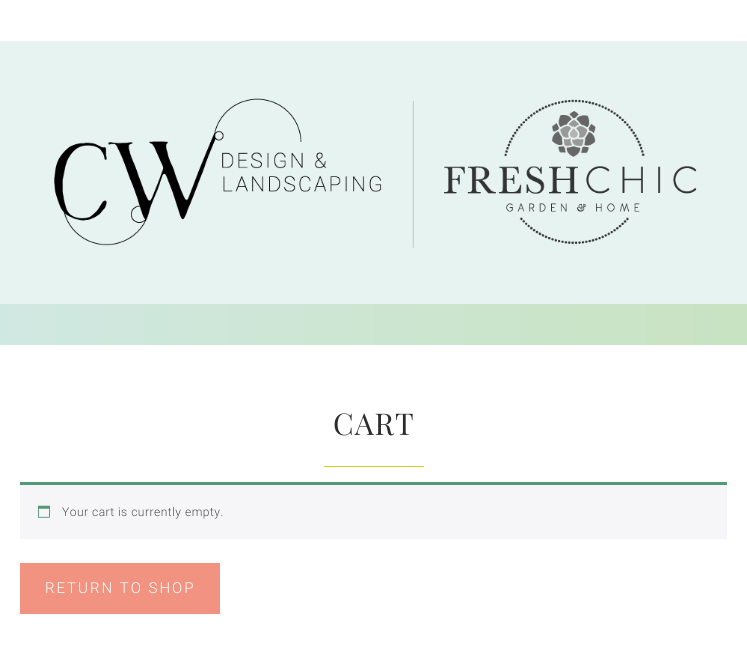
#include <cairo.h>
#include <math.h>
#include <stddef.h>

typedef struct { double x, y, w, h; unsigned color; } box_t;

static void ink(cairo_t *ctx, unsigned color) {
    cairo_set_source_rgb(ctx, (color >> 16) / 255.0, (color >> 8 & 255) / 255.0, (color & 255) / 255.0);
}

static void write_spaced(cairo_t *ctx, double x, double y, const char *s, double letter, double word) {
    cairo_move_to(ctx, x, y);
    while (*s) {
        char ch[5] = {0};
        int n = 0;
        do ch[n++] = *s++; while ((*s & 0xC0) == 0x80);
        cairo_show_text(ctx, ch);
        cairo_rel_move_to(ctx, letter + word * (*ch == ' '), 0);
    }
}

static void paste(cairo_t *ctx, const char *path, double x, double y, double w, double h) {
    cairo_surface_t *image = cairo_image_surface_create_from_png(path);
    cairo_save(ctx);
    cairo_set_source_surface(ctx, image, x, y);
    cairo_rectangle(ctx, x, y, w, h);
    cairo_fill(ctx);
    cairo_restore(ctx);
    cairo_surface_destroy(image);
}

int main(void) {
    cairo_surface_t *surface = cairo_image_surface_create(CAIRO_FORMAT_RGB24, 747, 656);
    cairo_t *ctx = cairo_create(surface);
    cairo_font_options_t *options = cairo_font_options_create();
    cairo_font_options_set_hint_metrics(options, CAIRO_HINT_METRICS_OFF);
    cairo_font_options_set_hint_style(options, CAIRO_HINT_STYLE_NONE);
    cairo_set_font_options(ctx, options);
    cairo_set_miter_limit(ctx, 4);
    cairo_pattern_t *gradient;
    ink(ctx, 0xFFFFFF);
    cairo_paint(ctx);
    ink(ctx, 0xF2F1F1);
    cairo_rectangle(ctx, 0, 41, 747, 1);
    cairo_fill(ctx);
    ink(ctx, 0xE7F3F0);
    cairo_rectangle(ctx, 0, 42, 747, 262);
    cairo_fill(ctx);
    paste(ctx, "media/1.png", 54, 98, 643, 150);
    gradient = cairo_pattern_create_linear(0, 325, 747, 325);
    cairo_pattern_add_color_stop_rgba(gradient, 0, 0.816, 0.91, 0.886, 1);
    cairo_pattern_add_color_stop_rgba(gradient, 1, 0.784, 0.89, 0.757, 1);
    cairo_set_source(ctx, gradient);
    cairo_pattern_destroy(gradient);
    cairo_rectangle(ctx, 0, 304, 747, 41);
    cairo_fill(ctx);
    cairo_select_font_face(ctx, "Playfair Display", CAIRO_FONT_SLANT_NORMAL, CAIRO_FONT_WEIGHT_NORMAL);
    cairo_set_font_size(ctx, 30);
    ink(ctx, 0x2C2C2C);
    write_spaced(ctx, 333, 435, "CART", 1, 0);
    {
        static const box_t items[] = {
            {324, 466, 100, 1, 0xCBD81E},
            {20, 485, 707, 54, 0xF6F5F8},
            {20, 482, 707, 3, 0x539974},
        };
        for (size_t i = 0; i < sizeof items / sizeof *items; i++) {
            ink(ctx, items[i].color);
            cairo_rectangle(ctx, items[i].x, items[i].y, items[i].w, items[i].h);
            cairo_fill(ctx);
        }
    }
    paste(ctx, "media/2.png", 38, 505, 12, 13);
    cairo_select_font_face(ctx, "Roboto Light", CAIRO_FONT_SLANT_NORMAL, CAIRO_FONT_WEIGHT_NORMAL);
    cairo_set_font_size(ctx, 12);
    ink(ctx, 0x515151);
    write_spaced(ctx, 62, 516, "Your cart is currently empty.", 0.5, 0);
    ink(ctx, 0xF19380);
    cairo_rectangle(ctx, 20, 563, 200, 51);
    cairo_fill(ctx);
    cairo_set_font_size(ctx, 15);
    ink(ctx, 0xFFFFFF);
    write_spaced(ctx, 45, 593, "RETURN TO SHOP", 2, 0);
    cairo_surface_write_to_png(surface, "image.png");
    cairo_font_options_destroy(options);
    cairo_destroy(ctx);
    cairo_surface_destroy(surface);
    return 0;
}
